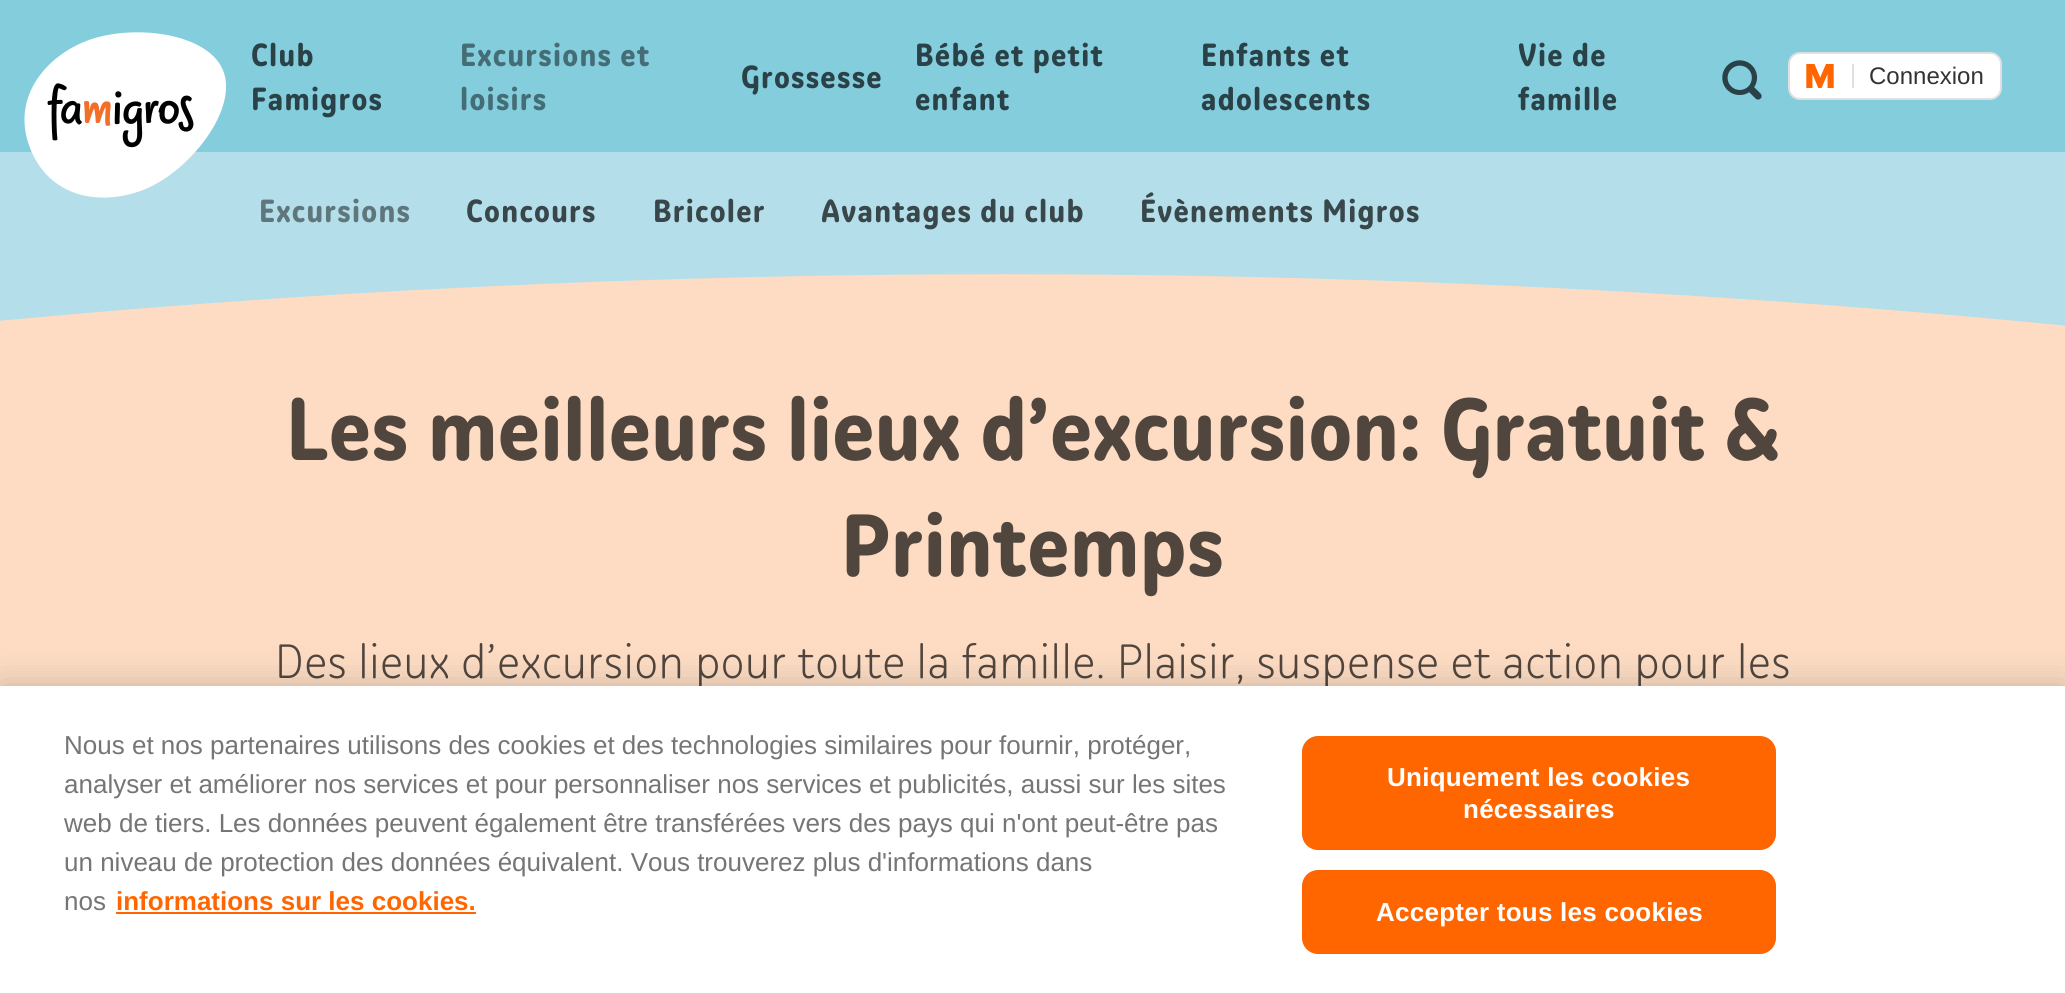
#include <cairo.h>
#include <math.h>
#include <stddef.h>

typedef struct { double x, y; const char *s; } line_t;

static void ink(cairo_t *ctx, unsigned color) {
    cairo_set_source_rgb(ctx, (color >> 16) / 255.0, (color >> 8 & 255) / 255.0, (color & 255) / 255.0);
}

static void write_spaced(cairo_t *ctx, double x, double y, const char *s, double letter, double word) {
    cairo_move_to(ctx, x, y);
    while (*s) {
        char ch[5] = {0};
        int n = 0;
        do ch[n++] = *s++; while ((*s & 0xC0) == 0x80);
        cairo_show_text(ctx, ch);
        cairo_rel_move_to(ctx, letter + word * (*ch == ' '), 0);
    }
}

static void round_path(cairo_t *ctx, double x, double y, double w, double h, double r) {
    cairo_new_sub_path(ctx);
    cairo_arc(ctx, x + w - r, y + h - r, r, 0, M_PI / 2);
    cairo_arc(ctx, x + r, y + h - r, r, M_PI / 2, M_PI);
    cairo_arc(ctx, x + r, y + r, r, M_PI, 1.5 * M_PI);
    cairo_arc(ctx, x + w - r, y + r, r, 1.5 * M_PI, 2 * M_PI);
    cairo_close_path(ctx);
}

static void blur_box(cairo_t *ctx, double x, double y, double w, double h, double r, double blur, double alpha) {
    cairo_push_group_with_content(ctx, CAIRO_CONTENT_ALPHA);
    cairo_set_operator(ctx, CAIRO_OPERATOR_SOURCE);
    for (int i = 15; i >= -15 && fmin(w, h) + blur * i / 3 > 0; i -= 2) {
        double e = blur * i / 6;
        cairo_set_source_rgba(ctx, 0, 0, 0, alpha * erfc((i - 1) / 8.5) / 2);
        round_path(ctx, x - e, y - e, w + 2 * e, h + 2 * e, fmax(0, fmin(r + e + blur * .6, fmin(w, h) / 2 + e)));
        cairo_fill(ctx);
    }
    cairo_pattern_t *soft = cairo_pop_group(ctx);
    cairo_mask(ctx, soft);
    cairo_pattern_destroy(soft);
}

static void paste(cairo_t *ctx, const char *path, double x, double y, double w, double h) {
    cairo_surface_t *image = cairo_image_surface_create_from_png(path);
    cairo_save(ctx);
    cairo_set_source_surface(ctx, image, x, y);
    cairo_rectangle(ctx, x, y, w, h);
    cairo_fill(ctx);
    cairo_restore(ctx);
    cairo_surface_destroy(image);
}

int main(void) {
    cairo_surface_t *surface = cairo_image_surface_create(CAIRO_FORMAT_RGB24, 2065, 993);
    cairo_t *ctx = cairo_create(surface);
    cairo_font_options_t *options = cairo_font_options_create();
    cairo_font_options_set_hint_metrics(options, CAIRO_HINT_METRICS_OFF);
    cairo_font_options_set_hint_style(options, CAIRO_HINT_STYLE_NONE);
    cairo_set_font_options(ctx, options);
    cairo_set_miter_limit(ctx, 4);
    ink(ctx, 0xFDDCC3);
    cairo_paint(ctx);
    ink(ctx, 0x83CDDD);
    cairo_rectangle(ctx, 0, 0, 2065, 152);
    cairo_fill(ctx);
    ink(ctx, 0xB3DEEA);
    cairo_rectangle(ctx, 0, 152, 2065, 60);
    cairo_fill(ctx);
    paste(ctx, "media/1.png", 24, 32, 202, 166);
    cairo_select_font_face(ctx, "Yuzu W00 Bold", CAIRO_FONT_SLANT_NORMAL, CAIRO_FONT_WEIGHT_BOLD);
    cairo_set_font_size(ctx, 32);
    ink(ctx, 0x2A4247);
    write_spaced(ctx, 251, 66, "Club", 1.25, 0);
    write_spaced(ctx, 251, 110, "Famigros", 1.25, 0);
    ink(ctx, 0x456D75);
    write_spaced(ctx, 460, 66, "Excursions et", 1.25, 0);
    write_spaced(ctx, 460, 110, "loisirs", 1.25, 0);
    ink(ctx, 0x2A4247);
    {
        static const line_t items[] = {
            {741, 88, "Grossesse"},
            {915, 66, "Bébé et petit"},
            {915, 110, "enfant"},
            {1201, 66, "Enfants et"},
            {1201, 110, "adolescents"},
            {1518, 66, "Vie de"},
            {1518, 110, "famille"},
        };
        for (size_t i = 0; i < sizeof items / sizeof *items; i++) {
            write_spaced(ctx, items[i].x, items[i].y, items[i].s, 1.25, 0);
        }
    }
    paste(ctx, "media/2.png", 1722, 60, 40, 40);
    ink(ctx, 0xFFFFFF);
    round_path(ctx, 1789, 53, 212, 46, 11);
    cairo_fill_preserve(ctx);
    ink(ctx, 0xE0E0E0);
    cairo_stroke(ctx);
    paste(ctx, "media/3.png", 1806, 64, 28, 24);
    cairo_rectangle(ctx, 1852, 64, 2, 24);
    cairo_fill(ctx);
    cairo_select_font_face(ctx, "Liberation Sans", CAIRO_FONT_SLANT_NORMAL, CAIRO_FONT_WEIGHT_NORMAL);
    cairo_set_font_size(ctx, 24);
    ink(ctx, 0x333333);
    cairo_move_to(ctx, 1869, 84);
    cairo_show_text(ctx, "Connexion");
    cairo_save(ctx);
    cairo_rectangle(ctx, 0, 212, 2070, 114);
    cairo_clip(ctx);
    ink(ctx, 0xB3DEEA);
    cairo_new_path(ctx);
    cairo_move_to(ctx, -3, 208);
    cairo_line_to(ctx, 515, 209);
    cairo_line_to(ctx, 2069, 208);
    cairo_line_to(ctx, 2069, 326);
    cairo_curve_to(ctx, 1437, 264, 729, 252, -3, 321);
    cairo_close_path(ctx);
    cairo_fill(ctx);
    cairo_restore(ctx);
    cairo_select_font_face(ctx, "Yuzu W00 Bold", CAIRO_FONT_SLANT_NORMAL, CAIRO_FONT_WEIGHT_BOLD);
    cairo_set_font_size(ctx, 32);
    ink(ctx, 0x5F767C);
    write_spaced(ctx, 259, 222, "Excursions", 1.25, 0);
    ink(ctx, 0x39474B);
    {
        static const line_t items[] = {
            {466, 222, "Concours"},
            {653, 222, "Bricoler"},
            {821, 222, "Avantages du club"},
            {1140, 222, "Évènements Migros"},
        };
        for (size_t i = 0; i < sizeof items / sizeof *items; i++) {
            write_spaced(ctx, items[i].x, items[i].y, items[i].s, 1.25, 0);
        }
    }
    cairo_set_font_size(ctx, 88);
    ink(ctx, 0x51463E);
    write_spaced(ctx, 286, 460, "Les meilleurs lieux d’excursion: Gratuit &", 0.4, 0);
    write_spaced(ctx, 841, 576, "Printemps", 0.4, 0);
    cairo_select_font_face(ctx, "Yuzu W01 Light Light", CAIRO_FONT_SLANT_NORMAL, CAIRO_FONT_WEIGHT_NORMAL);
    cairo_set_font_size(ctx, 48);
    write_spaced(ctx, 275, 678, "Des lieux d’excursion pour toute la famille. Plaisir, suspense et action pour les", 0.6, 0);
    ink(ctx, 0x000000);
    blur_box(ctx, 0, 686, 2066, 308, 0, 18, 0.2);
    ink(ctx, 0xFFFFFF);
    cairo_rectangle(ctx, 0, 686, 2065, 307);
    cairo_fill(ctx);
    cairo_select_font_face(ctx, "Liberation Sans", CAIRO_FONT_SLANT_NORMAL, CAIRO_FONT_WEIGHT_NORMAL);
    cairo_set_font_size(ctx, 26);
    ink(ctx, 0x757575);
    {
        static const line_t items[] = {
            {64, 754, "Nous et nos partenaires utilisons des cookies et des technologies similaires pour fournir, protéger,"},
            {64, 793, "analyser et améliorer nos services et pour personnaliser nos services et publicités, aussi sur les sites"},
            {64, 832, "web de tiers. Les données peuvent également être transférées vers des pays qui n'ont peut-être pas"},
            {64, 871, "un niveau de protection des données équivalent. Vous trouverez plus d'informations dans"},
            {64, 910, "nos"},
        };
        for (size_t i = 0; i < sizeof items / sizeof *items; i++) {
            cairo_move_to(ctx, items[i].x, items[i].y);
            cairo_show_text(ctx, items[i].s);
        }
    }
    cairo_select_font_face(ctx, "Liberation Sans", CAIRO_FONT_SLANT_NORMAL, CAIRO_FONT_WEIGHT_BOLD);
    ink(ctx, 0xFF6600);
    cairo_move_to(ctx, 116, 910);
    cairo_show_text(ctx, "informations sur les cookies.");
    cairo_rectangle(ctx, 116, 912, 360, 2);
    cairo_fill(ctx);
    round_path(ctx, 1303, 737, 472, 112, 15);
    cairo_fill_preserve(ctx);
    cairo_stroke(ctx);
    ink(ctx, 0xFFFFFF);
    write_spaced(ctx, 1387, 786, "Uniquement les cookies", 0.25, 0);
    write_spaced(ctx, 1463, 818, "nécessaires", 0.25, 0);
    ink(ctx, 0xFF6600);
    round_path(ctx, 1303, 871, 472, 82, 15);
    cairo_fill_preserve(ctx);
    cairo_stroke(ctx);
    ink(ctx, 0xFFFFFF);
    write_spaced(ctx, 1376, 921, "Accepter tous les cookies", 0.25, 0);
    cairo_surface_write_to_png(surface, "image.png");
    cairo_font_options_destroy(options);
    cairo_destroy(ctx);
    cairo_surface_destroy(surface);
    return 0;
}
